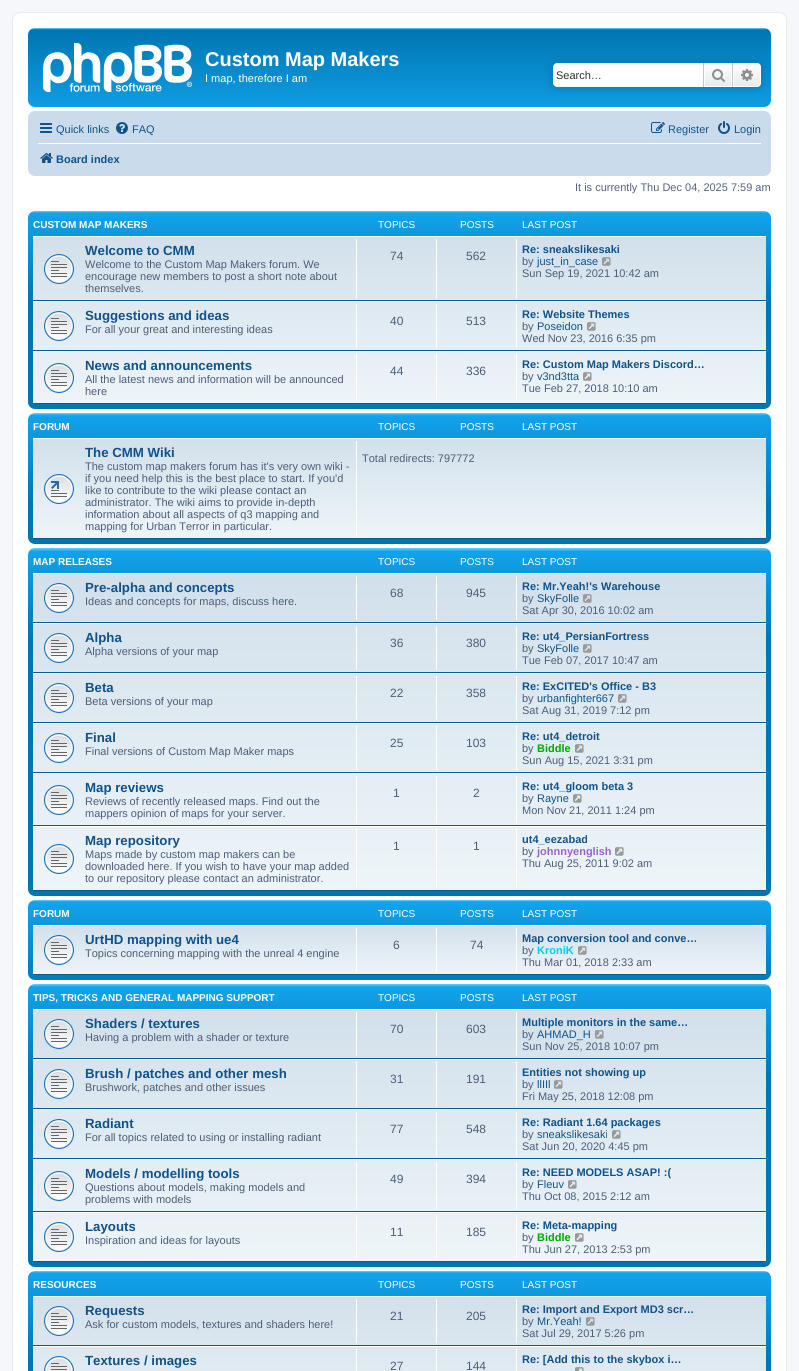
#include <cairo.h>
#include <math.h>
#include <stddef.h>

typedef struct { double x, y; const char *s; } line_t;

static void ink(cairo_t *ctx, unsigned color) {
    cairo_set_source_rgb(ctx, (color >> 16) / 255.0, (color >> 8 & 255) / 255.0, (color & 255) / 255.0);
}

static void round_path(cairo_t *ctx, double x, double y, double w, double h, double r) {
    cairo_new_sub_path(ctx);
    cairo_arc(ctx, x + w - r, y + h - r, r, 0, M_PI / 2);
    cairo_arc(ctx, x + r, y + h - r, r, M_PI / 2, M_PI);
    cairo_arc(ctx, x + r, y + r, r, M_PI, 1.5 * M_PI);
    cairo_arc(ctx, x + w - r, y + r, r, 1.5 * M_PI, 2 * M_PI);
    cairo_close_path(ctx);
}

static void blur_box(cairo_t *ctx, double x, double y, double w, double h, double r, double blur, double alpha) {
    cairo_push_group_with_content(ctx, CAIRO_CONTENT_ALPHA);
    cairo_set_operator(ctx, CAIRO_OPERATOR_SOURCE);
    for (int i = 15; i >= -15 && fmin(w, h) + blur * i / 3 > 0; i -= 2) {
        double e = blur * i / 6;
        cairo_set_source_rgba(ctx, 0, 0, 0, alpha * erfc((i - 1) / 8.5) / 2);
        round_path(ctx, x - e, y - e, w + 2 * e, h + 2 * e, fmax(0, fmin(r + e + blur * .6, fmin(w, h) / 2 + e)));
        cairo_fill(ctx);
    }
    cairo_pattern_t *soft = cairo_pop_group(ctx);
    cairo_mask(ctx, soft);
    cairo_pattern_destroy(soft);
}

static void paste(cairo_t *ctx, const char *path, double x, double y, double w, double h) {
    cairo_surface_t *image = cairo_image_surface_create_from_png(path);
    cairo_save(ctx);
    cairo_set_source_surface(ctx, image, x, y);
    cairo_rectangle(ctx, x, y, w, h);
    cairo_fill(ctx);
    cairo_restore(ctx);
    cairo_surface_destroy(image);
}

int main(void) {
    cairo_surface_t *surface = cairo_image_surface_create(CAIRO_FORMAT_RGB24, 799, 1371);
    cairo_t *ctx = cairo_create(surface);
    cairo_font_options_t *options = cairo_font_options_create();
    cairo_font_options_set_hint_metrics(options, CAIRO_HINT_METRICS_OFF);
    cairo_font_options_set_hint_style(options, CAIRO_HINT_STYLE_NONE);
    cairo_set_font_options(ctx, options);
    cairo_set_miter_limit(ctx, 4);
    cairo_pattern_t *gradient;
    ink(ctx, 0xF5F7FA);
    cairo_paint(ctx);
    ink(ctx, 0xFFFFFF);
    round_path(ctx, 12.5, 12.5, 774, 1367, 7.5);
    cairo_fill_preserve(ctx);
    ink(ctx, 0xE6E9ED);
    cairo_set_line_width(ctx, 1);
    cairo_stroke(ctx);
    gradient = cairo_pattern_create_linear(400, 28, 400, 120);
    cairo_pattern_add_color_stop_rgba(gradient, 0, 0.416, 0.808, 1, 1);
    cairo_pattern_add_color_stop_rgba(gradient, 0.02, 0, 0.463, 0.694, 1);
    cairo_pattern_add_color_stop_rgba(gradient, 1, 0.071, 0.639, 0.922, 1);
    cairo_set_source(ctx, gradient);
    cairo_pattern_destroy(gradient);
    round_path(ctx, 28, 28, 743, 79, 7);
    cairo_fill(ctx);
    paste(ctx, "media/1.png", 43, 43, 149, 49);
    cairo_select_font_face(ctx, "Liberation Sans", CAIRO_FONT_SLANT_NORMAL, CAIRO_FONT_WEIGHT_BOLD);
    cairo_set_font_size(ctx, 20);
    ink(ctx, 0xFFFFFF);
    cairo_move_to(ctx, 205, 66);
    cairo_show_text(ctx, "Custom Map Makers");
    cairo_select_font_face(ctx, "Liberation Sans", CAIRO_FONT_SLANT_NORMAL, CAIRO_FONT_WEIGHT_NORMAL);
    cairo_set_font_size(ctx, 11);
    cairo_move_to(ctx, 205, 82);
    cairo_show_text(ctx, "I map, therefore I am");
    ink(ctx, 0x0075B0);
    blur_box(ctx, 553, 63, 208, 24, 4, 5, 1);
    ink(ctx, 0xFFFFFF);
    cairo_new_path(ctx);
    cairo_move_to(ctx, 557, 63);
    cairo_line_to(ctx, 703, 63);
    cairo_line_to(ctx, 703, 87);
    cairo_line_to(ctx, 557, 87);
    cairo_curve_to(ctx, 555, 87, 553, 85, 553, 83);
    cairo_line_to(ctx, 553, 67);
    cairo_curve_to(ctx, 553, 65, 555, 63, 557, 63);
    cairo_close_path(ctx);
    cairo_fill(ctx);
    ink(ctx, 0x333333);
    cairo_move_to(ctx, 556, 79);
    cairo_show_text(ctx, "Search…");
    gradient = cairo_pattern_create_linear(718, 63, 718, 87);
    cairo_pattern_add_color_stop_rgba(gradient, 0, 1, 1, 1, 1);
    cairo_pattern_add_color_stop_rgba(gradient, 1, 0.914, 0.914, 0.914, 1);
    cairo_set_source(ctx, gradient);
    cairo_pattern_destroy(gradient);
    cairo_rectangle(ctx, 705, 64, 26, 22);
    cairo_fill(ctx);
    cairo_rectangle(ctx, 704.5, 63.5, 27, 23);
    ink(ctx, 0xFFFFFF);
    cairo_stroke(ctx);
    ink(ctx, 0xC7C3BF);
    cairo_rectangle(ctx, 732, 63, 1, 24);
    cairo_fill(ctx);
    cairo_rectangle(ctx, 703, 63, 1, 24);
    cairo_fill(ctx);
    paste(ctx, "media/2.png", 712, 69, 13, 13);
    gradient = cairo_pattern_create_linear(747, 63, 747, 87);
    cairo_pattern_add_color_stop_rgba(gradient, 0, 1, 1, 1, 1);
    cairo_pattern_add_color_stop_rgba(gradient, 1, 0.914, 0.914, 0.914, 1);
    cairo_set_source(ctx, gradient);
    cairo_pattern_destroy(gradient);
    cairo_new_path(ctx);
    cairo_move_to(ctx, 733.5, 63.5);
    cairo_line_to(ctx, 757, 63.5);
    cairo_curve_to(ctx, 759, 63.5, 760.5, 65, 760.5, 67);
    cairo_line_to(ctx, 760.5, 83);
    cairo_curve_to(ctx, 760.5, 85, 759, 86.5, 757, 86.5);
    cairo_line_to(ctx, 733.5, 86.5);
    cairo_close_path(ctx);
    cairo_fill_preserve(ctx);
    ink(ctx, 0xFFFFFF);
    cairo_stroke(ctx);
    paste(ctx, "media/3.png", 741, 69, 12, 12);
    ink(ctx, 0xCADCEB);
    round_path(ctx, 28, 111, 743, 65, 7);
    cairo_fill(ctx);
    paste(ctx, "media/4.png", 40, 123, 12, 10);
    ink(ctx, 0x105289);
    cairo_move_to(ctx, 56, 133);
    cairo_show_text(ctx, "Quick links");
    paste(ctx, "media/5.png", 116, 122, 12, 12);
    cairo_move_to(ctx, 132, 133);
    cairo_show_text(ctx, "FAQ");
    paste(ctx, "media/6.png", 651, 122, 14, 11);
    cairo_move_to(ctx, 668, 133);
    cairo_show_text(ctx, "Register");
    paste(ctx, "media/7.png", 718, 121, 12, 13);
    cairo_move_to(ctx, 734, 133);
    cairo_show_text(ctx, "Login");
    ink(ctx, 0xFFFFFF);
    cairo_rectangle(ctx, 38, 143, 723, 1);
    cairo_fill(ctx);
    paste(ctx, "media/8.png", 40, 153, 13, 10);
    cairo_select_font_face(ctx, "Liberation Sans", CAIRO_FONT_SLANT_NORMAL, CAIRO_FONT_WEIGHT_BOLD);
    ink(ctx, 0x105289);
    cairo_move_to(ctx, 56, 163);
    cairo_show_text(ctx, "Board index");
    cairo_select_font_face(ctx, "Liberation Sans", CAIRO_FONT_SLANT_NORMAL, CAIRO_FONT_WEIGHT_NORMAL);
    ink(ctx, 0x536482);
    cairo_move_to(ctx, 575, 191);
    cairo_show_text(ctx, "It is currently Thu Dec 04, 2025 7:59 am");
    gradient = cairo_pattern_create_linear(400, 211, 400, 409);
    cairo_pattern_add_color_stop_rgba(gradient, 0, 0.416, 0.808, 1, 1);
    cairo_pattern_add_color_stop_rgba(gradient, 0.01, 0.071, 0.639, 0.922, 1);
    cairo_pattern_add_color_stop_rgba(gradient, 0.46, 0, 0.463, 0.694, 1);
    cairo_pattern_add_color_stop_rgba(gradient, 1, 0, 0.463, 0.694, 1);
    cairo_set_source(ctx, gradient);
    cairo_pattern_destroy(gradient);
    round_path(ctx, 28, 211, 743, 198, 7);
    cairo_fill(ctx);
    cairo_select_font_face(ctx, "Liberation Sans", CAIRO_FONT_SLANT_NORMAL, CAIRO_FONT_WEIGHT_BOLD);
    cairo_set_font_size(ctx, 10);
    ink(ctx, 0xFFFFFF);
    cairo_move_to(ctx, 33, 228);
    cairo_show_text(ctx, "CUSTOM MAP MAKERS");
    cairo_select_font_face(ctx, "Liberation Sans", CAIRO_FONT_SLANT_NORMAL, CAIRO_FONT_WEIGHT_NORMAL);
    {
        static const line_t items[] = {
            {378, 228, "TOPICS"},
            {460, 228, "POSTS"},
            {522, 228, "LAST POST"},
        };
        for (size_t i = 0; i < sizeof items / sizeof *items; i++) {
            cairo_move_to(ctx, items[i].x, items[i].y);
            cairo_show_text(ctx, items[i].s);
        }
    }
    gradient = cairo_pattern_create_linear(400, 236, 400, 404);
    cairo_pattern_add_color_stop_rgba(gradient, 0, 0.824, 0.878, 0.922, 1);
    cairo_pattern_add_color_stop_rgba(gradient, 1, 0.933, 0.961, 0.976, 1);
    cairo_set_source(ctx, gradient);
    cairo_pattern_destroy(gradient);
    cairo_rectangle(ctx, 33, 237, 733, 166);
    cairo_fill(ctx);
    ink(ctx, 0xFFFFFF);
    cairo_rectangle(ctx, 33, 236, 733, 1);
    cairo_fill(ctx);
    ink(ctx, 0x00608F);
    cairo_rectangle(ctx, 33, 300, 733, 1);
    cairo_fill(ctx);
    paste(ctx, "media/9.png", 44, 254, 30, 30);
    cairo_select_font_face(ctx, "Liberation Sans", CAIRO_FONT_SLANT_NORMAL, CAIRO_FONT_WEIGHT_BOLD);
    cairo_set_font_size(ctx, 13.25);
    ink(ctx, 0x105289);
    cairo_move_to(ctx, 85, 255);
    cairo_show_text(ctx, "Welcome to CMM");
    cairo_select_font_face(ctx, "Liberation Sans", CAIRO_FONT_SLANT_NORMAL, CAIRO_FONT_WEIGHT_NORMAL);
    cairo_set_font_size(ctx, 11);
    ink(ctx, 0x4C5D77);
    {
        static const line_t items[] = {
            {85, 268, "Welcome to the Custom Map Makers forum. We"},
            {85, 280, "encourage new members to post a short note about"},
            {85, 292, "themselves."},
        };
        for (size_t i = 0; i < sizeof items / sizeof *items; i++) {
            cairo_move_to(ctx, items[i].x, items[i].y);
            cairo_show_text(ctx, items[i].s);
        }
    }
    ink(ctx, 0xFFFFFF);
    cairo_rectangle(ctx, 356, 239, 1, 59);
    cairo_fill(ctx);
    cairo_set_font_size(ctx, 12);
    ink(ctx, 0x4C5D77);
    cairo_move_to(ctx, 390, 260);
    cairo_show_text(ctx, "74");
    ink(ctx, 0xFFFFFF);
    cairo_rectangle(ctx, 436, 239, 1, 59);
    cairo_fill(ctx);
    ink(ctx, 0x4C5D77);
    cairo_move_to(ctx, 466, 260);
    cairo_show_text(ctx, "562");
    ink(ctx, 0xFFFFFF);
    cairo_rectangle(ctx, 516, 239, 1, 59);
    cairo_fill(ctx);
    cairo_select_font_face(ctx, "Liberation Sans", CAIRO_FONT_SLANT_NORMAL, CAIRO_FONT_WEIGHT_BOLD);
    cairo_set_font_size(ctx, 11);
    ink(ctx, 0x105289);
    cairo_move_to(ctx, 522, 253);
    cairo_show_text(ctx, "Re: sneakslikesaki");
    cairo_select_font_face(ctx, "Liberation Sans", CAIRO_FONT_SLANT_NORMAL, CAIRO_FONT_WEIGHT_NORMAL);
    ink(ctx, 0x4C5D77);
    cairo_move_to(ctx, 522, 265);
    cairo_show_text(ctx, "by");
    ink(ctx, 0x105289);
    cairo_move_to(ctx, 537, 265);
    cairo_show_text(ctx, "just_in_case");
    paste(ctx, "media/10.png", 602, 257, 9, 9);
    ink(ctx, 0x4C5D77);
    cairo_move_to(ctx, 522, 277);
    cairo_show_text(ctx, "Sun Sep 19, 2021 10:42 am");
    ink(ctx, 0xFFFFFF);
    cairo_rectangle(ctx, 33, 301, 733, 1);
    cairo_fill(ctx);
    ink(ctx, 0x00608F);
    cairo_rectangle(ctx, 33, 350, 733, 1);
    cairo_fill(ctx);
    paste(ctx, "media/11.png", 44, 311, 30, 30);
    cairo_select_font_face(ctx, "Liberation Sans", CAIRO_FONT_SLANT_NORMAL, CAIRO_FONT_WEIGHT_BOLD);
    cairo_set_font_size(ctx, 13.25);
    ink(ctx, 0x105289);
    cairo_move_to(ctx, 85, 320);
    cairo_show_text(ctx, "Suggestions and ideas");
    cairo_select_font_face(ctx, "Liberation Sans", CAIRO_FONT_SLANT_NORMAL, CAIRO_FONT_WEIGHT_NORMAL);
    cairo_set_font_size(ctx, 11);
    ink(ctx, 0x4C5D77);
    cairo_move_to(ctx, 85, 333);
    cairo_show_text(ctx, "For all your great and interesting ideas");
    ink(ctx, 0xFFFFFF);
    cairo_rectangle(ctx, 356, 304, 1, 44);
    cairo_fill(ctx);
    cairo_set_font_size(ctx, 12);
    ink(ctx, 0x4C5D77);
    cairo_move_to(ctx, 390, 325);
    cairo_show_text(ctx, "40");
    ink(ctx, 0xFFFFFF);
    cairo_rectangle(ctx, 436, 304, 1, 44);
    cairo_fill(ctx);
    ink(ctx, 0x4C5D77);
    cairo_move_to(ctx, 466, 325);
    cairo_show_text(ctx, "513");
    ink(ctx, 0xFFFFFF);
    cairo_rectangle(ctx, 516, 304, 1, 44);
    cairo_fill(ctx);
    cairo_select_font_face(ctx, "Liberation Sans", CAIRO_FONT_SLANT_NORMAL, CAIRO_FONT_WEIGHT_BOLD);
    cairo_set_font_size(ctx, 11);
    ink(ctx, 0x105289);
    cairo_move_to(ctx, 522, 318);
    cairo_show_text(ctx, "Re: Website Themes");
    cairo_select_font_face(ctx, "Liberation Sans", CAIRO_FONT_SLANT_NORMAL, CAIRO_FONT_WEIGHT_NORMAL);
    ink(ctx, 0x4C5D77);
    cairo_move_to(ctx, 522, 330);
    cairo_show_text(ctx, "by");
    ink(ctx, 0x105289);
    cairo_move_to(ctx, 537, 330);
    cairo_show_text(ctx, "Poseidon");
    paste(ctx, "media/12.png", 587, 322, 9, 9);
    ink(ctx, 0x4C5D77);
    cairo_move_to(ctx, 522, 342);
    cairo_show_text(ctx, "Wed Nov 23, 2016 6:35 pm");
    ink(ctx, 0xFFFFFF);
    cairo_rectangle(ctx, 33, 351, 733, 1);
    cairo_fill(ctx);
    ink(ctx, 0x00608F);
    cairo_rectangle(ctx, 33, 403, 733, 1);
    cairo_fill(ctx);
    paste(ctx, "media/13.png", 44, 363, 30, 30);
    cairo_select_font_face(ctx, "Liberation Sans", CAIRO_FONT_SLANT_NORMAL, CAIRO_FONT_WEIGHT_BOLD);
    cairo_set_font_size(ctx, 13.25);
    ink(ctx, 0x105289);
    cairo_move_to(ctx, 85, 370);
    cairo_show_text(ctx, "News and announcements");
    cairo_select_font_face(ctx, "Liberation Sans", CAIRO_FONT_SLANT_NORMAL, CAIRO_FONT_WEIGHT_NORMAL);
    cairo_set_font_size(ctx, 11);
    ink(ctx, 0x4C5D77);
    cairo_move_to(ctx, 85, 383);
    cairo_show_text(ctx, "All the latest news and information will be announced");
    cairo_move_to(ctx, 85, 395);
    cairo_show_text(ctx, "here");
    ink(ctx, 0xFFFFFF);
    cairo_rectangle(ctx, 356, 354, 1, 47);
    cairo_fill(ctx);
    cairo_set_font_size(ctx, 12);
    ink(ctx, 0x4C5D77);
    cairo_move_to(ctx, 390, 375);
    cairo_show_text(ctx, "44");
    ink(ctx, 0xFFFFFF);
    cairo_rectangle(ctx, 436, 354, 1, 47);
    cairo_fill(ctx);
    ink(ctx, 0x4C5D77);
    cairo_move_to(ctx, 466, 375);
    cairo_show_text(ctx, "336");
    ink(ctx, 0xFFFFFF);
    cairo_rectangle(ctx, 516, 354, 1, 47);
    cairo_fill(ctx);
    cairo_select_font_face(ctx, "Liberation Sans", CAIRO_FONT_SLANT_NORMAL, CAIRO_FONT_WEIGHT_BOLD);
    cairo_set_font_size(ctx, 11);
    ink(ctx, 0x105289);
    cairo_move_to(ctx, 522, 368);
    cairo_show_text(ctx, "Re: Custom Map Makers Discord…");
    cairo_select_font_face(ctx, "Liberation Sans", CAIRO_FONT_SLANT_NORMAL, CAIRO_FONT_WEIGHT_NORMAL);
    ink(ctx, 0x4C5D77);
    cairo_move_to(ctx, 522, 380);
    cairo_show_text(ctx, "by");
    ink(ctx, 0x105289);
    cairo_move_to(ctx, 537, 380);
    cairo_show_text(ctx, "v3nd3tta");
    paste(ctx, "media/14.png", 583, 372, 9, 9);
    ink(ctx, 0x4C5D77);
    cairo_move_to(ctx, 522, 392);
    cairo_show_text(ctx, "Tue Feb 27, 2018 10:10 am");
    gradient = cairo_pattern_create_linear(400, 413, 400, 544);
    cairo_pattern_add_color_stop_rgba(gradient, 0, 0.416, 0.808, 1, 1);
    cairo_pattern_add_color_stop_rgba(gradient, 0.02, 0.071, 0.639, 0.922, 1);
    cairo_pattern_add_color_stop_rgba(gradient, 0.7, 0, 0.463, 0.694, 1);
    cairo_pattern_add_color_stop_rgba(gradient, 1, 0, 0.463, 0.694, 1);
    cairo_set_source(ctx, gradient);
    cairo_pattern_destroy(gradient);
    round_path(ctx, 28, 413, 743, 131, 7);
    cairo_fill(ctx);
    cairo_select_font_face(ctx, "Liberation Sans", CAIRO_FONT_SLANT_NORMAL, CAIRO_FONT_WEIGHT_BOLD);
    cairo_set_font_size(ctx, 10);
    ink(ctx, 0xFFFFFF);
    cairo_move_to(ctx, 33, 430);
    cairo_show_text(ctx, "FORUM");
    cairo_select_font_face(ctx, "Liberation Sans", CAIRO_FONT_SLANT_NORMAL, CAIRO_FONT_WEIGHT_NORMAL);
    {
        static const line_t items[] = {
            {378, 430, "TOPICS"},
            {460, 430, "POSTS"},
            {522, 430, "LAST POST"},
        };
        for (size_t i = 0; i < sizeof items / sizeof *items; i++) {
            cairo_move_to(ctx, items[i].x, items[i].y);
            cairo_show_text(ctx, items[i].s);
        }
    }
    gradient = cairo_pattern_create_linear(400, 438, 400, 539);
    cairo_pattern_add_color_stop_rgba(gradient, 0, 0.824, 0.878, 0.922, 1);
    cairo_pattern_add_color_stop_rgba(gradient, 1, 0.933, 0.961, 0.976, 1);
    cairo_set_source(ctx, gradient);
    cairo_pattern_destroy(gradient);
    cairo_rectangle(ctx, 33, 439, 733, 99);
    cairo_fill(ctx);
    ink(ctx, 0xFFFFFF);
    cairo_rectangle(ctx, 33, 438, 733, 1);
    cairo_fill(ctx);
    ink(ctx, 0x00608F);
    cairo_rectangle(ctx, 33, 538, 733, 1);
    cairo_fill(ctx);
    paste(ctx, "media/15.png", 44, 474, 30, 30);
    cairo_select_font_face(ctx, "Liberation Sans", CAIRO_FONT_SLANT_NORMAL, CAIRO_FONT_WEIGHT_BOLD);
    cairo_set_font_size(ctx, 13.25);
    ink(ctx, 0x105289);
    cairo_move_to(ctx, 85, 457);
    cairo_show_text(ctx, "The CMM Wiki");
    cairo_select_font_face(ctx, "Liberation Sans", CAIRO_FONT_SLANT_NORMAL, CAIRO_FONT_WEIGHT_NORMAL);
    cairo_set_font_size(ctx, 11);
    ink(ctx, 0x4C5D77);
    {
        static const line_t items[] = {
            {85, 470, "The custom map makers forum has it's very own wiki -"},
            {85, 482, "if you need help this is the best place to start. If you'd"},
            {85, 494, "like to contribute to the wiki please contact an"},
            {85, 506, "administrator. The wiki aims to provide in-depth"},
            {85, 518, "information about all aspects of q3 mapping and"},
            {85, 530, "mapping for Urban Terror in particular."},
        };
        for (size_t i = 0; i < sizeof items / sizeof *items; i++) {
            cairo_move_to(ctx, items[i].x, items[i].y);
            cairo_show_text(ctx, items[i].s);
        }
    }
    ink(ctx, 0xFFFFFF);
    cairo_rectangle(ctx, 356, 441, 1, 95);
    cairo_fill(ctx);
    ink(ctx, 0x4C5D77);
    cairo_move_to(ctx, 362, 462);
    cairo_show_text(ctx, "Total redirects: 797772");
    gradient = cairo_pattern_create_linear(400, 548, 400, 896);
    cairo_pattern_add_color_stop_rgba(gradient, 0, 0.416, 0.808, 1, 1);
    cairo_pattern_add_color_stop_rgba(gradient, 0.01, 0.071, 0.639, 0.922, 1);
    cairo_pattern_add_color_stop_rgba(gradient, 0.26, 0, 0.463, 0.694, 1);
    cairo_pattern_add_color_stop_rgba(gradient, 1, 0, 0.463, 0.694, 1);
    cairo_set_source(ctx, gradient);
    cairo_pattern_destroy(gradient);
    round_path(ctx, 28, 548, 743, 348, 7);
    cairo_fill(ctx);
    cairo_select_font_face(ctx, "Liberation Sans", CAIRO_FONT_SLANT_NORMAL, CAIRO_FONT_WEIGHT_BOLD);
    cairo_set_font_size(ctx, 10);
    ink(ctx, 0xFFFFFF);
    cairo_move_to(ctx, 33, 565);
    cairo_show_text(ctx, "MAP RELEASES");
    cairo_select_font_face(ctx, "Liberation Sans", CAIRO_FONT_SLANT_NORMAL, CAIRO_FONT_WEIGHT_NORMAL);
    {
        static const line_t items[] = {
            {378, 565, "TOPICS"},
            {460, 565, "POSTS"},
            {522, 565, "LAST POST"},
        };
        for (size_t i = 0; i < sizeof items / sizeof *items; i++) {
            cairo_move_to(ctx, items[i].x, items[i].y);
            cairo_show_text(ctx, items[i].s);
        }
    }
    gradient = cairo_pattern_create_linear(400, 573, 400, 891);
    cairo_pattern_add_color_stop_rgba(gradient, 0, 0.824, 0.878, 0.922, 1);
    cairo_pattern_add_color_stop_rgba(gradient, 1, 0.933, 0.961, 0.976, 1);
    cairo_set_source(ctx, gradient);
    cairo_pattern_destroy(gradient);
    cairo_rectangle(ctx, 33, 574, 733, 316);
    cairo_fill(ctx);
    ink(ctx, 0xFFFFFF);
    cairo_rectangle(ctx, 33, 573, 733, 1);
    cairo_fill(ctx);
    ink(ctx, 0x00608F);
    cairo_rectangle(ctx, 33, 622, 733, 1);
    cairo_fill(ctx);
    paste(ctx, "media/16.png", 44, 583, 30, 30);
    cairo_select_font_face(ctx, "Liberation Sans", CAIRO_FONT_SLANT_NORMAL, CAIRO_FONT_WEIGHT_BOLD);
    cairo_set_font_size(ctx, 13.25);
    ink(ctx, 0x105289);
    cairo_move_to(ctx, 85, 592);
    cairo_show_text(ctx, "Pre-alpha and concepts");
    cairo_select_font_face(ctx, "Liberation Sans", CAIRO_FONT_SLANT_NORMAL, CAIRO_FONT_WEIGHT_NORMAL);
    cairo_set_font_size(ctx, 11);
    ink(ctx, 0x4C5D77);
    cairo_move_to(ctx, 85, 605);
    cairo_show_text(ctx, "Ideas and concepts for maps, discuss here.");
    ink(ctx, 0xFFFFFF);
    cairo_rectangle(ctx, 356, 576, 1, 44);
    cairo_fill(ctx);
    cairo_set_font_size(ctx, 12);
    ink(ctx, 0x4C5D77);
    cairo_move_to(ctx, 390, 597);
    cairo_show_text(ctx, "68");
    ink(ctx, 0xFFFFFF);
    cairo_rectangle(ctx, 436, 576, 1, 44);
    cairo_fill(ctx);
    ink(ctx, 0x4C5D77);
    cairo_move_to(ctx, 466, 597);
    cairo_show_text(ctx, "945");
    ink(ctx, 0xFFFFFF);
    cairo_rectangle(ctx, 516, 576, 1, 44);
    cairo_fill(ctx);
    cairo_select_font_face(ctx, "Liberation Sans", CAIRO_FONT_SLANT_NORMAL, CAIRO_FONT_WEIGHT_BOLD);
    cairo_set_font_size(ctx, 11);
    ink(ctx, 0x105289);
    cairo_move_to(ctx, 522, 590);
    cairo_show_text(ctx, "Re: Mr.Yeah!'s Warehouse");
    cairo_select_font_face(ctx, "Liberation Sans", CAIRO_FONT_SLANT_NORMAL, CAIRO_FONT_WEIGHT_NORMAL);
    ink(ctx, 0x4C5D77);
    cairo_move_to(ctx, 522, 602);
    cairo_show_text(ctx, "by");
    ink(ctx, 0x105289);
    cairo_move_to(ctx, 537, 602);
    cairo_show_text(ctx, "SkyFolle");
    paste(ctx, "media/17.png", 583, 594, 9, 9);
    ink(ctx, 0x4C5D77);
    cairo_move_to(ctx, 522, 614);
    cairo_show_text(ctx, "Sat Apr 30, 2016 10:02 am");
    ink(ctx, 0xFFFFFF);
    cairo_rectangle(ctx, 33, 623, 733, 1);
    cairo_fill(ctx);
    ink(ctx, 0x00608F);
    cairo_rectangle(ctx, 33, 672, 733, 1);
    cairo_fill(ctx);
    paste(ctx, "media/18.png", 44, 633, 30, 30);
    cairo_select_font_face(ctx, "Liberation Sans", CAIRO_FONT_SLANT_NORMAL, CAIRO_FONT_WEIGHT_BOLD);
    cairo_set_font_size(ctx, 13.25);
    ink(ctx, 0x105289);
    cairo_move_to(ctx, 85, 642);
    cairo_show_text(ctx, "Alpha");
    cairo_select_font_face(ctx, "Liberation Sans", CAIRO_FONT_SLANT_NORMAL, CAIRO_FONT_WEIGHT_NORMAL);
    cairo_set_font_size(ctx, 11);
    ink(ctx, 0x4C5D77);
    cairo_move_to(ctx, 85, 655);
    cairo_show_text(ctx, "Alpha versions of your map");
    ink(ctx, 0xFFFFFF);
    cairo_rectangle(ctx, 356, 626, 1, 44);
    cairo_fill(ctx);
    cairo_set_font_size(ctx, 12);
    ink(ctx, 0x4C5D77);
    cairo_move_to(ctx, 390, 647);
    cairo_show_text(ctx, "36");
    ink(ctx, 0xFFFFFF);
    cairo_rectangle(ctx, 436, 626, 1, 44);
    cairo_fill(ctx);
    ink(ctx, 0x4C5D77);
    cairo_move_to(ctx, 466, 647);
    cairo_show_text(ctx, "380");
    ink(ctx, 0xFFFFFF);
    cairo_rectangle(ctx, 516, 626, 1, 44);
    cairo_fill(ctx);
    cairo_select_font_face(ctx, "Liberation Sans", CAIRO_FONT_SLANT_NORMAL, CAIRO_FONT_WEIGHT_BOLD);
    cairo_set_font_size(ctx, 11);
    ink(ctx, 0x105289);
    cairo_move_to(ctx, 522, 640);
    cairo_show_text(ctx, "Re: ut4_PersianFortress");
    cairo_select_font_face(ctx, "Liberation Sans", CAIRO_FONT_SLANT_NORMAL, CAIRO_FONT_WEIGHT_NORMAL);
    ink(ctx, 0x4C5D77);
    cairo_move_to(ctx, 522, 652);
    cairo_show_text(ctx, "by");
    ink(ctx, 0x105289);
    cairo_move_to(ctx, 537, 652);
    cairo_show_text(ctx, "SkyFolle");
    paste(ctx, "media/19.png", 583, 644, 9, 9);
    ink(ctx, 0x4C5D77);
    cairo_move_to(ctx, 522, 664);
    cairo_show_text(ctx, "Tue Feb 07, 2017 10:47 am");
    ink(ctx, 0xFFFFFF);
    cairo_rectangle(ctx, 33, 673, 733, 1);
    cairo_fill(ctx);
    ink(ctx, 0x00608F);
    cairo_rectangle(ctx, 33, 722, 733, 1);
    cairo_fill(ctx);
    paste(ctx, "media/20.png", 44, 683, 30, 30);
    cairo_select_font_face(ctx, "Liberation Sans", CAIRO_FONT_SLANT_NORMAL, CAIRO_FONT_WEIGHT_BOLD);
    cairo_set_font_size(ctx, 13.25);
    ink(ctx, 0x105289);
    cairo_move_to(ctx, 85, 692);
    cairo_show_text(ctx, "Beta");
    cairo_select_font_face(ctx, "Liberation Sans", CAIRO_FONT_SLANT_NORMAL, CAIRO_FONT_WEIGHT_NORMAL);
    cairo_set_font_size(ctx, 11);
    ink(ctx, 0x4C5D77);
    cairo_move_to(ctx, 85, 705);
    cairo_show_text(ctx, "Beta versions of your map");
    ink(ctx, 0xFFFFFF);
    cairo_rectangle(ctx, 356, 676, 1, 44);
    cairo_fill(ctx);
    cairo_set_font_size(ctx, 12);
    ink(ctx, 0x4C5D77);
    cairo_move_to(ctx, 390, 697);
    cairo_show_text(ctx, "22");
    ink(ctx, 0xFFFFFF);
    cairo_rectangle(ctx, 436, 676, 1, 44);
    cairo_fill(ctx);
    ink(ctx, 0x4C5D77);
    cairo_move_to(ctx, 466, 697);
    cairo_show_text(ctx, "358");
    ink(ctx, 0xFFFFFF);
    cairo_rectangle(ctx, 516, 676, 1, 44);
    cairo_fill(ctx);
    cairo_select_font_face(ctx, "Liberation Sans", CAIRO_FONT_SLANT_NORMAL, CAIRO_FONT_WEIGHT_BOLD);
    cairo_set_font_size(ctx, 11);
    ink(ctx, 0x105289);
    cairo_move_to(ctx, 522, 690);
    cairo_show_text(ctx, "Re: ExCITED's Office - B3");
    cairo_select_font_face(ctx, "Liberation Sans", CAIRO_FONT_SLANT_NORMAL, CAIRO_FONT_WEIGHT_NORMAL);
    ink(ctx, 0x4C5D77);
    cairo_move_to(ctx, 522, 702);
    cairo_show_text(ctx, "by");
    ink(ctx, 0x105289);
    cairo_move_to(ctx, 537, 702);
    cairo_show_text(ctx, "urbanfighter667");
    paste(ctx, "media/21.png", 618, 694, 9, 9);
    ink(ctx, 0x4C5D77);
    cairo_move_to(ctx, 522, 714);
    cairo_show_text(ctx, "Sat Aug 31, 2019 7:12 pm");
    ink(ctx, 0xFFFFFF);
    cairo_rectangle(ctx, 33, 723, 733, 1);
    cairo_fill(ctx);
    ink(ctx, 0x00608F);
    cairo_rectangle(ctx, 33, 772, 733, 1);
    cairo_fill(ctx);
    paste(ctx, "media/22.png", 44, 733, 30, 30);
    cairo_select_font_face(ctx, "Liberation Sans", CAIRO_FONT_SLANT_NORMAL, CAIRO_FONT_WEIGHT_BOLD);
    cairo_set_font_size(ctx, 13.25);
    ink(ctx, 0x105289);
    cairo_move_to(ctx, 85, 742);
    cairo_show_text(ctx, "Final");
    cairo_select_font_face(ctx, "Liberation Sans", CAIRO_FONT_SLANT_NORMAL, CAIRO_FONT_WEIGHT_NORMAL);
    cairo_set_font_size(ctx, 11);
    ink(ctx, 0x4C5D77);
    cairo_move_to(ctx, 85, 755);
    cairo_show_text(ctx, "Final versions of Custom Map Maker maps");
    ink(ctx, 0xFFFFFF);
    cairo_rectangle(ctx, 356, 726, 1, 44);
    cairo_fill(ctx);
    cairo_set_font_size(ctx, 12);
    ink(ctx, 0x4C5D77);
    cairo_move_to(ctx, 390, 747);
    cairo_show_text(ctx, "25");
    ink(ctx, 0xFFFFFF);
    cairo_rectangle(ctx, 436, 726, 1, 44);
    cairo_fill(ctx);
    ink(ctx, 0x4C5D77);
    cairo_move_to(ctx, 466, 747);
    cairo_show_text(ctx, "103");
    ink(ctx, 0xFFFFFF);
    cairo_rectangle(ctx, 516, 726, 1, 44);
    cairo_fill(ctx);
    cairo_select_font_face(ctx, "Liberation Sans", CAIRO_FONT_SLANT_NORMAL, CAIRO_FONT_WEIGHT_BOLD);
    cairo_set_font_size(ctx, 11);
    ink(ctx, 0x105289);
    cairo_move_to(ctx, 522, 740);
    cairo_show_text(ctx, "Re: ut4_detroit");
    cairo_select_font_face(ctx, "Liberation Sans", CAIRO_FONT_SLANT_NORMAL, CAIRO_FONT_WEIGHT_NORMAL);
    ink(ctx, 0x4C5D77);
    cairo_move_to(ctx, 522, 752);
    cairo_show_text(ctx, "by");
    cairo_select_font_face(ctx, "Liberation Sans", CAIRO_FONT_SLANT_NORMAL, CAIRO_FONT_WEIGHT_BOLD);
    ink(ctx, 0x00AA00);
    cairo_move_to(ctx, 537, 752);
    cairo_show_text(ctx, "Biddle");
    paste(ctx, "media/23.png", 575, 744, 9, 9);
    cairo_select_font_face(ctx, "Liberation Sans", CAIRO_FONT_SLANT_NORMAL, CAIRO_FONT_WEIGHT_NORMAL);
    ink(ctx, 0x4C5D77);
    cairo_move_to(ctx, 522, 764);
    cairo_show_text(ctx, "Sun Aug 15, 2021 3:31 pm");
    ink(ctx, 0xFFFFFF);
    cairo_rectangle(ctx, 33, 773, 733, 1);
    cairo_fill(ctx);
    ink(ctx, 0x00608F);
    cairo_rectangle(ctx, 33, 825, 733, 1);
    cairo_fill(ctx);
    paste(ctx, "media/24.png", 44, 785, 30, 30);
    cairo_select_font_face(ctx, "Liberation Sans", CAIRO_FONT_SLANT_NORMAL, CAIRO_FONT_WEIGHT_BOLD);
    cairo_set_font_size(ctx, 13.25);
    ink(ctx, 0x105289);
    cairo_move_to(ctx, 85, 792);
    cairo_show_text(ctx, "Map reviews");
    cairo_select_font_face(ctx, "Liberation Sans", CAIRO_FONT_SLANT_NORMAL, CAIRO_FONT_WEIGHT_NORMAL);
    cairo_set_font_size(ctx, 11);
    ink(ctx, 0x4C5D77);
    cairo_move_to(ctx, 85, 805);
    cairo_show_text(ctx, "Reviews of recently released maps. Find out the");
    cairo_move_to(ctx, 85, 817);
    cairo_show_text(ctx, "mappers opinion of maps for your server.");
    ink(ctx, 0xFFFFFF);
    cairo_rectangle(ctx, 356, 776, 1, 47);
    cairo_fill(ctx);
    cairo_set_font_size(ctx, 12);
    ink(ctx, 0x4C5D77);
    cairo_move_to(ctx, 393, 797);
    cairo_show_text(ctx, "1");
    ink(ctx, 0xFFFFFF);
    cairo_rectangle(ctx, 436, 776, 1, 47);
    cairo_fill(ctx);
    ink(ctx, 0x4C5D77);
    cairo_move_to(ctx, 473, 797);
    cairo_show_text(ctx, "2");
    ink(ctx, 0xFFFFFF);
    cairo_rectangle(ctx, 516, 776, 1, 47);
    cairo_fill(ctx);
    cairo_select_font_face(ctx, "Liberation Sans", CAIRO_FONT_SLANT_NORMAL, CAIRO_FONT_WEIGHT_BOLD);
    cairo_set_font_size(ctx, 11);
    ink(ctx, 0x105289);
    cairo_move_to(ctx, 522, 790);
    cairo_show_text(ctx, "Re: ut4_gloom beta 3");
    cairo_select_font_face(ctx, "Liberation Sans", CAIRO_FONT_SLANT_NORMAL, CAIRO_FONT_WEIGHT_NORMAL);
    ink(ctx, 0x4C5D77);
    cairo_move_to(ctx, 522, 802);
    cairo_show_text(ctx, "by");
    ink(ctx, 0x105289);
    cairo_move_to(ctx, 537, 802);
    cairo_show_text(ctx, "Rayne");
    paste(ctx, "media/25.png", 573, 794, 9, 9);
    ink(ctx, 0x4C5D77);
    cairo_move_to(ctx, 522, 814);
    cairo_show_text(ctx, "Mon Nov 21, 2011 1:24 pm");
    ink(ctx, 0xFFFFFF);
    cairo_rectangle(ctx, 33, 826, 733, 1);
    cairo_fill(ctx);
    ink(ctx, 0x00608F);
    cairo_rectangle(ctx, 33, 890, 733, 1);
    cairo_fill(ctx);
    paste(ctx, "media/26.png", 44, 844, 30, 30);
    cairo_select_font_face(ctx, "Liberation Sans", CAIRO_FONT_SLANT_NORMAL, CAIRO_FONT_WEIGHT_BOLD);
    cairo_set_font_size(ctx, 13.25);
    ink(ctx, 0x105289);
    cairo_move_to(ctx, 85, 845);
    cairo_show_text(ctx, "Map repository");
    cairo_select_font_face(ctx, "Liberation Sans", CAIRO_FONT_SLANT_NORMAL, CAIRO_FONT_WEIGHT_NORMAL);
    cairo_set_font_size(ctx, 11);
    ink(ctx, 0x4C5D77);
    {
        static const line_t items[] = {
            {85, 858, "Maps made by custom map makers can be"},
            {85, 870, "downloaded here. If you wish to have your map added"},
            {85, 882, "to our repository please contact an administrator."},
        };
        for (size_t i = 0; i < sizeof items / sizeof *items; i++) {
            cairo_move_to(ctx, items[i].x, items[i].y);
            cairo_show_text(ctx, items[i].s);
        }
    }
    ink(ctx, 0xFFFFFF);
    cairo_rectangle(ctx, 356, 829, 1, 59);
    cairo_fill(ctx);
    cairo_set_font_size(ctx, 12);
    ink(ctx, 0x4C5D77);
    cairo_move_to(ctx, 393, 850);
    cairo_show_text(ctx, "1");
    ink(ctx, 0xFFFFFF);
    cairo_rectangle(ctx, 436, 829, 1, 59);
    cairo_fill(ctx);
    ink(ctx, 0x4C5D77);
    cairo_move_to(ctx, 473, 850);
    cairo_show_text(ctx, "1");
    ink(ctx, 0xFFFFFF);
    cairo_rectangle(ctx, 516, 829, 1, 59);
    cairo_fill(ctx);
    cairo_select_font_face(ctx, "Liberation Sans", CAIRO_FONT_SLANT_NORMAL, CAIRO_FONT_WEIGHT_BOLD);
    cairo_set_font_size(ctx, 11);
    ink(ctx, 0x105289);
    cairo_move_to(ctx, 522, 843);
    cairo_show_text(ctx, "ut4_eezabad");
    cairo_select_font_face(ctx, "Liberation Sans", CAIRO_FONT_SLANT_NORMAL, CAIRO_FONT_WEIGHT_NORMAL);
    ink(ctx, 0x4C5D77);
    cairo_move_to(ctx, 522, 855);
    cairo_show_text(ctx, "by");
    cairo_select_font_face(ctx, "Liberation Sans", CAIRO_FONT_SLANT_NORMAL, CAIRO_FONT_WEIGHT_BOLD);
    ink(ctx, 0x9966CC);
    cairo_move_to(ctx, 537, 855);
    cairo_show_text(ctx, "johnnyenglish");
    paste(ctx, "media/27.png", 615, 847, 9, 9);
    cairo_select_font_face(ctx, "Liberation Sans", CAIRO_FONT_SLANT_NORMAL, CAIRO_FONT_WEIGHT_NORMAL);
    ink(ctx, 0x4C5D77);
    cairo_move_to(ctx, 522, 867);
    cairo_show_text(ctx, "Thu Aug 25, 2011 9:02 am");
    gradient = cairo_pattern_create_linear(400, 900, 400, 992);
    cairo_pattern_add_color_stop_rgba(gradient, 0, 0.416, 0.808, 1, 1);
    cairo_pattern_add_color_stop_rgba(gradient, 0.02, 0.071, 0.639, 0.922, 1);
    cairo_pattern_add_color_stop_rgba(gradient, 1, 0, 0.463, 0.694, 1);
    cairo_set_source(ctx, gradient);
    cairo_pattern_destroy(gradient);
    round_path(ctx, 28, 900, 743, 80, 7);
    cairo_fill(ctx);
    cairo_select_font_face(ctx, "Liberation Sans", CAIRO_FONT_SLANT_NORMAL, CAIRO_FONT_WEIGHT_BOLD);
    cairo_set_font_size(ctx, 10);
    ink(ctx, 0xFFFFFF);
    cairo_move_to(ctx, 33, 917);
    cairo_show_text(ctx, "FORUM");
    cairo_select_font_face(ctx, "Liberation Sans", CAIRO_FONT_SLANT_NORMAL, CAIRO_FONT_WEIGHT_NORMAL);
    {
        static const line_t items[] = {
            {378, 917, "TOPICS"},
            {460, 917, "POSTS"},
            {522, 917, "LAST POST"},
        };
        for (size_t i = 0; i < sizeof items / sizeof *items; i++) {
            cairo_move_to(ctx, items[i].x, items[i].y);
            cairo_show_text(ctx, items[i].s);
        }
    }
    gradient = cairo_pattern_create_linear(400, 925, 400, 975);
    cairo_pattern_add_color_stop_rgba(gradient, 0, 0.824, 0.878, 0.922, 1);
    cairo_pattern_add_color_stop_rgba(gradient, 1, 0.933, 0.961, 0.976, 1);
    cairo_set_source(ctx, gradient);
    cairo_pattern_destroy(gradient);
    cairo_rectangle(ctx, 33, 926, 733, 48);
    cairo_fill(ctx);
    ink(ctx, 0xFFFFFF);
    cairo_rectangle(ctx, 33, 925, 733, 1);
    cairo_fill(ctx);
    ink(ctx, 0x00608F);
    cairo_rectangle(ctx, 33, 974, 733, 1);
    cairo_fill(ctx);
    paste(ctx, "media/28.png", 44, 935, 30, 30);
    cairo_select_font_face(ctx, "Liberation Sans", CAIRO_FONT_SLANT_NORMAL, CAIRO_FONT_WEIGHT_BOLD);
    cairo_set_font_size(ctx, 13.25);
    ink(ctx, 0x105289);
    cairo_move_to(ctx, 85, 944);
    cairo_show_text(ctx, "UrtHD mapping with ue4");
    cairo_select_font_face(ctx, "Liberation Sans", CAIRO_FONT_SLANT_NORMAL, CAIRO_FONT_WEIGHT_NORMAL);
    cairo_set_font_size(ctx, 11);
    ink(ctx, 0x4C5D77);
    cairo_move_to(ctx, 85, 957);
    cairo_show_text(ctx, "Topics concerning mapping with the unreal 4 engine");
    ink(ctx, 0xFFFFFF);
    cairo_rectangle(ctx, 356, 928, 1, 44);
    cairo_fill(ctx);
    cairo_set_font_size(ctx, 12);
    ink(ctx, 0x4C5D77);
    cairo_move_to(ctx, 393, 949);
    cairo_show_text(ctx, "6");
    ink(ctx, 0xFFFFFF);
    cairo_rectangle(ctx, 436, 928, 1, 44);
    cairo_fill(ctx);
    ink(ctx, 0x4C5D77);
    cairo_move_to(ctx, 470, 949);
    cairo_show_text(ctx, "74");
    ink(ctx, 0xFFFFFF);
    cairo_rectangle(ctx, 516, 928, 1, 44);
    cairo_fill(ctx);
    cairo_select_font_face(ctx, "Liberation Sans", CAIRO_FONT_SLANT_NORMAL, CAIRO_FONT_WEIGHT_BOLD);
    cairo_set_font_size(ctx, 11);
    ink(ctx, 0x105289);
    cairo_move_to(ctx, 522, 942);
    cairo_show_text(ctx, "Map conversion tool and conve…");
    cairo_select_font_face(ctx, "Liberation Sans", CAIRO_FONT_SLANT_NORMAL, CAIRO_FONT_WEIGHT_NORMAL);
    ink(ctx, 0x4C5D77);
    cairo_move_to(ctx, 522, 954);
    cairo_show_text(ctx, "by");
    cairo_select_font_face(ctx, "Liberation Sans", CAIRO_FONT_SLANT_NORMAL, CAIRO_FONT_WEIGHT_BOLD);
    ink(ctx, 0x00CCFF);
    cairo_move_to(ctx, 537, 954);
    cairo_show_text(ctx, "KroniK");
    paste(ctx, "media/29.png", 578, 946, 9, 9);
    cairo_select_font_face(ctx, "Liberation Sans", CAIRO_FONT_SLANT_NORMAL, CAIRO_FONT_WEIGHT_NORMAL);
    ink(ctx, 0x4C5D77);
    cairo_move_to(ctx, 522, 966);
    cairo_show_text(ctx, "Thu Mar 01, 2018 2:33 am");
    gradient = cairo_pattern_create_linear(400, 984, 400, 1267);
    cairo_pattern_add_color_stop_rgba(gradient, 0, 0.416, 0.808, 1, 1);
    cairo_pattern_add_color_stop_rgba(gradient, 0.01, 0.071, 0.639, 0.922, 1);
    cairo_pattern_add_color_stop_rgba(gradient, 0.33, 0, 0.463, 0.694, 1);
    cairo_pattern_add_color_stop_rgba(gradient, 1, 0, 0.463, 0.694, 1);
    cairo_set_source(ctx, gradient);
    cairo_pattern_destroy(gradient);
    round_path(ctx, 28, 984, 743, 283, 7);
    cairo_fill(ctx);
    cairo_select_font_face(ctx, "Liberation Sans", CAIRO_FONT_SLANT_NORMAL, CAIRO_FONT_WEIGHT_BOLD);
    cairo_set_font_size(ctx, 10);
    ink(ctx, 0xFFFFFF);
    cairo_move_to(ctx, 33, 1001);
    cairo_show_text(ctx, "TIPS, TRICKS AND GENERAL MAPPING SUPPORT");
    cairo_select_font_face(ctx, "Liberation Sans", CAIRO_FONT_SLANT_NORMAL, CAIRO_FONT_WEIGHT_NORMAL);
    {
        static const line_t items[] = {
            {378, 1001, "TOPICS"},
            {460, 1001, "POSTS"},
            {522, 1001, "LAST POST"},
        };
        for (size_t i = 0; i < sizeof items / sizeof *items; i++) {
            cairo_move_to(ctx, items[i].x, items[i].y);
            cairo_show_text(ctx, items[i].s);
        }
    }
    gradient = cairo_pattern_create_linear(400, 1009, 400, 1262);
    cairo_pattern_add_color_stop_rgba(gradient, 0, 0.824, 0.878, 0.922, 1);
    cairo_pattern_add_color_stop_rgba(gradient, 1, 0.933, 0.961, 0.976, 1);
    cairo_set_source(ctx, gradient);
    cairo_pattern_destroy(gradient);
    cairo_rectangle(ctx, 33, 1010, 733, 251);
    cairo_fill(ctx);
    ink(ctx, 0xFFFFFF);
    cairo_rectangle(ctx, 33, 1009, 733, 1);
    cairo_fill(ctx);
    ink(ctx, 0x00608F);
    cairo_rectangle(ctx, 33, 1058, 733, 1);
    cairo_fill(ctx);
    paste(ctx, "media/30.png", 44, 1019, 30, 30);
    cairo_select_font_face(ctx, "Liberation Sans", CAIRO_FONT_SLANT_NORMAL, CAIRO_FONT_WEIGHT_BOLD);
    cairo_set_font_size(ctx, 13.25);
    ink(ctx, 0x105289);
    cairo_move_to(ctx, 85, 1028);
    cairo_show_text(ctx, "Shaders / textures");
    cairo_select_font_face(ctx, "Liberation Sans", CAIRO_FONT_SLANT_NORMAL, CAIRO_FONT_WEIGHT_NORMAL);
    cairo_set_font_size(ctx, 11);
    ink(ctx, 0x4C5D77);
    cairo_move_to(ctx, 85, 1041);
    cairo_show_text(ctx, "Having a problem with a shader or texture");
    ink(ctx, 0xFFFFFF);
    cairo_rectangle(ctx, 356, 1012, 1, 44);
    cairo_fill(ctx);
    cairo_set_font_size(ctx, 12);
    ink(ctx, 0x4C5D77);
    cairo_move_to(ctx, 390, 1033);
    cairo_show_text(ctx, "70");
    ink(ctx, 0xFFFFFF);
    cairo_rectangle(ctx, 436, 1012, 1, 44);
    cairo_fill(ctx);
    ink(ctx, 0x4C5D77);
    cairo_move_to(ctx, 466, 1033);
    cairo_show_text(ctx, "603");
    ink(ctx, 0xFFFFFF);
    cairo_rectangle(ctx, 516, 1012, 1, 44);
    cairo_fill(ctx);
    cairo_select_font_face(ctx, "Liberation Sans", CAIRO_FONT_SLANT_NORMAL, CAIRO_FONT_WEIGHT_BOLD);
    cairo_set_font_size(ctx, 11);
    ink(ctx, 0x105289);
    cairo_move_to(ctx, 522, 1026);
    cairo_show_text(ctx, "Multiple monitors in the same…");
    cairo_select_font_face(ctx, "Liberation Sans", CAIRO_FONT_SLANT_NORMAL, CAIRO_FONT_WEIGHT_NORMAL);
    ink(ctx, 0x4C5D77);
    cairo_move_to(ctx, 522, 1038);
    cairo_show_text(ctx, "by");
    ink(ctx, 0x105289);
    cairo_move_to(ctx, 537, 1038);
    cairo_show_text(ctx, "AHMAD_H");
    paste(ctx, "media/31.png", 595, 1030, 9, 9);
    ink(ctx, 0x4C5D77);
    cairo_move_to(ctx, 522, 1050);
    cairo_show_text(ctx, "Sun Nov 25, 2018 10:07 pm");
    ink(ctx, 0xFFFFFF);
    cairo_rectangle(ctx, 33, 1059, 733, 1);
    cairo_fill(ctx);
    ink(ctx, 0x00608F);
    cairo_rectangle(ctx, 33, 1108, 733, 1);
    cairo_fill(ctx);
    paste(ctx, "media/32.png", 44, 1069, 30, 30);
    cairo_select_font_face(ctx, "Liberation Sans", CAIRO_FONT_SLANT_NORMAL, CAIRO_FONT_WEIGHT_BOLD);
    cairo_set_font_size(ctx, 13.25);
    ink(ctx, 0x105289);
    cairo_move_to(ctx, 85, 1078);
    cairo_show_text(ctx, "Brush / patches and other mesh");
    cairo_select_font_face(ctx, "Liberation Sans", CAIRO_FONT_SLANT_NORMAL, CAIRO_FONT_WEIGHT_NORMAL);
    cairo_set_font_size(ctx, 11);
    ink(ctx, 0x4C5D77);
    cairo_move_to(ctx, 85, 1091);
    cairo_show_text(ctx, "Brushwork, patches and other issues");
    ink(ctx, 0xFFFFFF);
    cairo_rectangle(ctx, 356, 1062, 1, 44);
    cairo_fill(ctx);
    cairo_set_font_size(ctx, 12);
    ink(ctx, 0x4C5D77);
    cairo_move_to(ctx, 390, 1083);
    cairo_show_text(ctx, "31");
    ink(ctx, 0xFFFFFF);
    cairo_rectangle(ctx, 436, 1062, 1, 44);
    cairo_fill(ctx);
    ink(ctx, 0x4C5D77);
    cairo_move_to(ctx, 466, 1083);
    cairo_show_text(ctx, "191");
    ink(ctx, 0xFFFFFF);
    cairo_rectangle(ctx, 516, 1062, 1, 44);
    cairo_fill(ctx);
    cairo_select_font_face(ctx, "Liberation Sans", CAIRO_FONT_SLANT_NORMAL, CAIRO_FONT_WEIGHT_BOLD);
    cairo_set_font_size(ctx, 11);
    ink(ctx, 0x105289);
    cairo_move_to(ctx, 522, 1076);
    cairo_show_text(ctx, "Entities not showing up");
    cairo_select_font_face(ctx, "Liberation Sans", CAIRO_FONT_SLANT_NORMAL, CAIRO_FONT_WEIGHT_NORMAL);
    ink(ctx, 0x4C5D77);
    cairo_move_to(ctx, 522, 1088);
    cairo_show_text(ctx, "by");
    ink(ctx, 0x105289);
    cairo_move_to(ctx, 537, 1088);
    cairo_show_text(ctx, "llIIl");
    paste(ctx, "media/33.png", 554, 1080, 9, 9);
    ink(ctx, 0x4C5D77);
    cairo_move_to(ctx, 522, 1100);
    cairo_show_text(ctx, "Fri May 25, 2018 12:08 pm");
    ink(ctx, 0xFFFFFF);
    cairo_rectangle(ctx, 33, 1109, 733, 1);
    cairo_fill(ctx);
    ink(ctx, 0x00608F);
    cairo_rectangle(ctx, 33, 1158, 733, 1);
    cairo_fill(ctx);
    paste(ctx, "media/34.png", 44, 1119, 30, 30);
    cairo_select_font_face(ctx, "Liberation Sans", CAIRO_FONT_SLANT_NORMAL, CAIRO_FONT_WEIGHT_BOLD);
    cairo_set_font_size(ctx, 13.25);
    ink(ctx, 0x105289);
    cairo_move_to(ctx, 85, 1128);
    cairo_show_text(ctx, "Radiant");
    cairo_select_font_face(ctx, "Liberation Sans", CAIRO_FONT_SLANT_NORMAL, CAIRO_FONT_WEIGHT_NORMAL);
    cairo_set_font_size(ctx, 11);
    ink(ctx, 0x4C5D77);
    cairo_move_to(ctx, 85, 1141);
    cairo_show_text(ctx, "For all topics related to using or installing radiant");
    ink(ctx, 0xFFFFFF);
    cairo_rectangle(ctx, 356, 1112, 1, 44);
    cairo_fill(ctx);
    cairo_set_font_size(ctx, 12);
    ink(ctx, 0x4C5D77);
    cairo_move_to(ctx, 390, 1133);
    cairo_show_text(ctx, "77");
    ink(ctx, 0xFFFFFF);
    cairo_rectangle(ctx, 436, 1112, 1, 44);
    cairo_fill(ctx);
    ink(ctx, 0x4C5D77);
    cairo_move_to(ctx, 466, 1133);
    cairo_show_text(ctx, "548");
    ink(ctx, 0xFFFFFF);
    cairo_rectangle(ctx, 516, 1112, 1, 44);
    cairo_fill(ctx);
    cairo_select_font_face(ctx, "Liberation Sans", CAIRO_FONT_SLANT_NORMAL, CAIRO_FONT_WEIGHT_BOLD);
    cairo_set_font_size(ctx, 11);
    ink(ctx, 0x105289);
    cairo_move_to(ctx, 522, 1126);
    cairo_show_text(ctx, "Re: Radiant 1.64 packages");
    cairo_select_font_face(ctx, "Liberation Sans", CAIRO_FONT_SLANT_NORMAL, CAIRO_FONT_WEIGHT_NORMAL);
    ink(ctx, 0x4C5D77);
    cairo_move_to(ctx, 522, 1138);
    cairo_show_text(ctx, "by");
    ink(ctx, 0x105289);
    cairo_move_to(ctx, 537, 1138);
    cairo_show_text(ctx, "sneakslikesaki");
    paste(ctx, "media/35.png", 612, 1130, 9, 9);
    ink(ctx, 0x4C5D77);
    cairo_move_to(ctx, 522, 1150);
    cairo_show_text(ctx, "Sat Jun 20, 2020 4:45 pm");
    ink(ctx, 0xFFFFFF);
    cairo_rectangle(ctx, 33, 1159, 733, 1);
    cairo_fill(ctx);
    ink(ctx, 0x00608F);
    cairo_rectangle(ctx, 33, 1211, 733, 1);
    cairo_fill(ctx);
    paste(ctx, "media/36.png", 44, 1171, 30, 30);
    cairo_select_font_face(ctx, "Liberation Sans", CAIRO_FONT_SLANT_NORMAL, CAIRO_FONT_WEIGHT_BOLD);
    cairo_set_font_size(ctx, 13.25);
    ink(ctx, 0x105289);
    cairo_move_to(ctx, 85, 1178);
    cairo_show_text(ctx, "Models / modelling tools");
    cairo_select_font_face(ctx, "Liberation Sans", CAIRO_FONT_SLANT_NORMAL, CAIRO_FONT_WEIGHT_NORMAL);
    cairo_set_font_size(ctx, 11);
    ink(ctx, 0x4C5D77);
    cairo_move_to(ctx, 85, 1191);
    cairo_show_text(ctx, "Questions about models, making models and");
    cairo_move_to(ctx, 85, 1203);
    cairo_show_text(ctx, "problems with models");
    ink(ctx, 0xFFFFFF);
    cairo_rectangle(ctx, 356, 1162, 1, 47);
    cairo_fill(ctx);
    cairo_set_font_size(ctx, 12);
    ink(ctx, 0x4C5D77);
    cairo_move_to(ctx, 390, 1183);
    cairo_show_text(ctx, "49");
    ink(ctx, 0xFFFFFF);
    cairo_rectangle(ctx, 436, 1162, 1, 47);
    cairo_fill(ctx);
    ink(ctx, 0x4C5D77);
    cairo_move_to(ctx, 466, 1183);
    cairo_show_text(ctx, "394");
    ink(ctx, 0xFFFFFF);
    cairo_rectangle(ctx, 516, 1162, 1, 47);
    cairo_fill(ctx);
    cairo_select_font_face(ctx, "Liberation Sans", CAIRO_FONT_SLANT_NORMAL, CAIRO_FONT_WEIGHT_BOLD);
    cairo_set_font_size(ctx, 11);
    ink(ctx, 0x105289);
    cairo_move_to(ctx, 522, 1176);
    cairo_show_text(ctx, "Re: NEED MODELS ASAP! :(");
    cairo_select_font_face(ctx, "Liberation Sans", CAIRO_FONT_SLANT_NORMAL, CAIRO_FONT_WEIGHT_NORMAL);
    ink(ctx, 0x4C5D77);
    cairo_move_to(ctx, 522, 1188);
    cairo_show_text(ctx, "by");
    ink(ctx, 0x105289);
    cairo_move_to(ctx, 537, 1188);
    cairo_show_text(ctx, "Fleuv");
    paste(ctx, "media/37.png", 568, 1180, 9, 9);
    ink(ctx, 0x4C5D77);
    cairo_move_to(ctx, 522, 1200);
    cairo_show_text(ctx, "Thu Oct 08, 2015 2:12 am");
    ink(ctx, 0xFFFFFF);
    cairo_rectangle(ctx, 33, 1212, 733, 1);
    cairo_fill(ctx);
    ink(ctx, 0x00608F);
    cairo_rectangle(ctx, 33, 1261, 733, 1);
    cairo_fill(ctx);
    paste(ctx, "media/38.png", 44, 1222, 30, 30);
    cairo_select_font_face(ctx, "Liberation Sans", CAIRO_FONT_SLANT_NORMAL, CAIRO_FONT_WEIGHT_BOLD);
    cairo_set_font_size(ctx, 13.25);
    ink(ctx, 0x105289);
    cairo_move_to(ctx, 85, 1231);
    cairo_show_text(ctx, "Layouts");
    cairo_select_font_face(ctx, "Liberation Sans", CAIRO_FONT_SLANT_NORMAL, CAIRO_FONT_WEIGHT_NORMAL);
    cairo_set_font_size(ctx, 11);
    ink(ctx, 0x4C5D77);
    cairo_move_to(ctx, 85, 1244);
    cairo_show_text(ctx, "Inspiration and ideas for layouts");
    ink(ctx, 0xFFFFFF);
    cairo_rectangle(ctx, 356, 1215, 1, 44);
    cairo_fill(ctx);
    cairo_set_font_size(ctx, 12);
    ink(ctx, 0x4C5D77);
    cairo_move_to(ctx, 390, 1236);
    cairo_show_text(ctx, "11");
    ink(ctx, 0xFFFFFF);
    cairo_rectangle(ctx, 436, 1215, 1, 44);
    cairo_fill(ctx);
    ink(ctx, 0x4C5D77);
    cairo_move_to(ctx, 466, 1236);
    cairo_show_text(ctx, "185");
    ink(ctx, 0xFFFFFF);
    cairo_rectangle(ctx, 516, 1215, 1, 44);
    cairo_fill(ctx);
    cairo_select_font_face(ctx, "Liberation Sans", CAIRO_FONT_SLANT_NORMAL, CAIRO_FONT_WEIGHT_BOLD);
    cairo_set_font_size(ctx, 11);
    ink(ctx, 0x105289);
    cairo_move_to(ctx, 522, 1229);
    cairo_show_text(ctx, "Re: Meta-mapping");
    cairo_select_font_face(ctx, "Liberation Sans", CAIRO_FONT_SLANT_NORMAL, CAIRO_FONT_WEIGHT_NORMAL);
    ink(ctx, 0x4C5D77);
    cairo_move_to(ctx, 522, 1241);
    cairo_show_text(ctx, "by");
    cairo_select_font_face(ctx, "Liberation Sans", CAIRO_FONT_SLANT_NORMAL, CAIRO_FONT_WEIGHT_BOLD);
    ink(ctx, 0x00AA00);
    cairo_move_to(ctx, 537, 1241);
    cairo_show_text(ctx, "Biddle");
    paste(ctx, "media/39.png", 575, 1233, 9, 9);
    cairo_select_font_face(ctx, "Liberation Sans", CAIRO_FONT_SLANT_NORMAL, CAIRO_FONT_WEIGHT_NORMAL);
    ink(ctx, 0x4C5D77);
    cairo_move_to(ctx, 522, 1253);
    cairo_show_text(ctx, "Thu Jun 27, 2013 2:53 pm");
    gradient = cairo_pattern_create_linear(400, 1271, 400, 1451);
    cairo_pattern_add_color_stop_rgba(gradient, 0, 0.416, 0.808, 1, 1);
    cairo_pattern_add_color_stop_rgba(gradient, 0.01, 0.071, 0.639, 0.922, 1);
    cairo_pattern_add_color_stop_rgba(gradient, 0.51, 0, 0.463, 0.694, 1);
    cairo_pattern_add_color_stop_rgba(gradient, 1, 0, 0.463, 0.694, 1);
    cairo_set_source(ctx, gradient);
    cairo_pattern_destroy(gradient);
    round_path(ctx, 28, 1271, 743, 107, 7);
    cairo_fill(ctx);
    cairo_select_font_face(ctx, "Liberation Sans", CAIRO_FONT_SLANT_NORMAL, CAIRO_FONT_WEIGHT_BOLD);
    cairo_set_font_size(ctx, 10);
    ink(ctx, 0xFFFFFF);
    cairo_move_to(ctx, 33, 1288);
    cairo_show_text(ctx, "RESOURCES");
    cairo_select_font_face(ctx, "Liberation Sans", CAIRO_FONT_SLANT_NORMAL, CAIRO_FONT_WEIGHT_NORMAL);
    {
        static const line_t items[] = {
            {378, 1288, "TOPICS"},
            {460, 1288, "POSTS"},
            {522, 1288, "LAST POST"},
        };
        for (size_t i = 0; i < sizeof items / sizeof *items; i++) {
            cairo_move_to(ctx, items[i].x, items[i].y);
            cairo_show_text(ctx, items[i].s);
        }
    }
    gradient = cairo_pattern_create_linear(400, 1296, 400, 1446);
    cairo_pattern_add_color_stop_rgba(gradient, 0, 0.824, 0.878, 0.922, 1);
    cairo_pattern_add_color_stop_rgba(gradient, 1, 0.933, 0.961, 0.976, 1);
    cairo_set_source(ctx, gradient);
    cairo_pattern_destroy(gradient);
    cairo_rectangle(ctx, 33, 1297, 733, 74);
    cairo_fill(ctx);
    ink(ctx, 0xFFFFFF);
    cairo_rectangle(ctx, 33, 1296, 733, 1);
    cairo_fill(ctx);
    ink(ctx, 0x00608F);
    cairo_rectangle(ctx, 33, 1345, 733, 1);
    cairo_fill(ctx);
    paste(ctx, "media/40.png", 44, 1306, 30, 30);
    cairo_select_font_face(ctx, "Liberation Sans", CAIRO_FONT_SLANT_NORMAL, CAIRO_FONT_WEIGHT_BOLD);
    cairo_set_font_size(ctx, 13.25);
    ink(ctx, 0x105289);
    cairo_move_to(ctx, 85, 1315);
    cairo_show_text(ctx, "Requests");
    cairo_select_font_face(ctx, "Liberation Sans", CAIRO_FONT_SLANT_NORMAL, CAIRO_FONT_WEIGHT_NORMAL);
    cairo_set_font_size(ctx, 11);
    ink(ctx, 0x4C5D77);
    cairo_move_to(ctx, 85, 1328);
    cairo_show_text(ctx, "Ask for custom models, textures and shaders here!");
    ink(ctx, 0xFFFFFF);
    cairo_rectangle(ctx, 356, 1299, 1, 44);
    cairo_fill(ctx);
    cairo_set_font_size(ctx, 12);
    ink(ctx, 0x4C5D77);
    cairo_move_to(ctx, 390, 1320);
    cairo_show_text(ctx, "21");
    ink(ctx, 0xFFFFFF);
    cairo_rectangle(ctx, 436, 1299, 1, 44);
    cairo_fill(ctx);
    ink(ctx, 0x4C5D77);
    cairo_move_to(ctx, 466, 1320);
    cairo_show_text(ctx, "205");
    ink(ctx, 0xFFFFFF);
    cairo_rectangle(ctx, 516, 1299, 1, 44);
    cairo_fill(ctx);
    cairo_select_font_face(ctx, "Liberation Sans", CAIRO_FONT_SLANT_NORMAL, CAIRO_FONT_WEIGHT_BOLD);
    cairo_set_font_size(ctx, 11);
    ink(ctx, 0x105289);
    cairo_move_to(ctx, 522, 1313);
    cairo_show_text(ctx, "Re: Import and Export MD3 scr…");
    cairo_select_font_face(ctx, "Liberation Sans", CAIRO_FONT_SLANT_NORMAL, CAIRO_FONT_WEIGHT_NORMAL);
    ink(ctx, 0x4C5D77);
    cairo_move_to(ctx, 522, 1325);
    cairo_show_text(ctx, "by");
    ink(ctx, 0x105289);
    cairo_move_to(ctx, 537, 1325);
    cairo_show_text(ctx, "Mr.Yeah!");
    paste(ctx, "media/41.png", 586, 1317, 9, 9);
    ink(ctx, 0x4C5D77);
    cairo_move_to(ctx, 522, 1337);
    cairo_show_text(ctx, "Sat Jul 29, 2017 5:26 pm");
    ink(ctx, 0xFFFFFF);
    cairo_rectangle(ctx, 33, 1346, 733, 1);
    cairo_fill(ctx);
    paste(ctx, "media/42.png", 44, 1356, 30, 15);
    cairo_select_font_face(ctx, "Liberation Sans", CAIRO_FONT_SLANT_NORMAL, CAIRO_FONT_WEIGHT_BOLD);
    cairo_set_font_size(ctx, 13.25);
    ink(ctx, 0x105289);
    cairo_move_to(ctx, 85, 1365);
    cairo_show_text(ctx, "Textures / images");
    ink(ctx, 0xFFFFFF);
    cairo_rectangle(ctx, 356, 1349, 1, 22);
    cairo_fill(ctx);
    cairo_select_font_face(ctx, "Liberation Sans", CAIRO_FONT_SLANT_NORMAL, CAIRO_FONT_WEIGHT_NORMAL);
    cairo_set_font_size(ctx, 12);
    ink(ctx, 0x4C5D77);
    cairo_move_to(ctx, 390, 1370);
    cairo_show_text(ctx, "27");
    ink(ctx, 0xFFFFFF);
    cairo_rectangle(ctx, 436, 1349, 1, 22);
    cairo_fill(ctx);
    ink(ctx, 0x4C5D77);
    cairo_move_to(ctx, 466, 1370);
    cairo_show_text(ctx, "144");
    ink(ctx, 0xFFFFFF);
    cairo_rectangle(ctx, 516, 1349, 1, 22);
    cairo_fill(ctx);
    cairo_select_font_face(ctx, "Liberation Sans", CAIRO_FONT_SLANT_NORMAL, CAIRO_FONT_WEIGHT_BOLD);
    cairo_set_font_size(ctx, 11);
    ink(ctx, 0x105289);
    cairo_move_to(ctx, 522, 1363);
    cairo_show_text(ctx, "Re: [Add this to the skybox i…");
    paste(ctx, "media/43.png", 575, 1367, 9, 4);
    cairo_surface_write_to_png(surface, "image.png");
    cairo_font_options_destroy(options);
    cairo_destroy(ctx);
    cairo_surface_destroy(surface);
    return 0;
}
